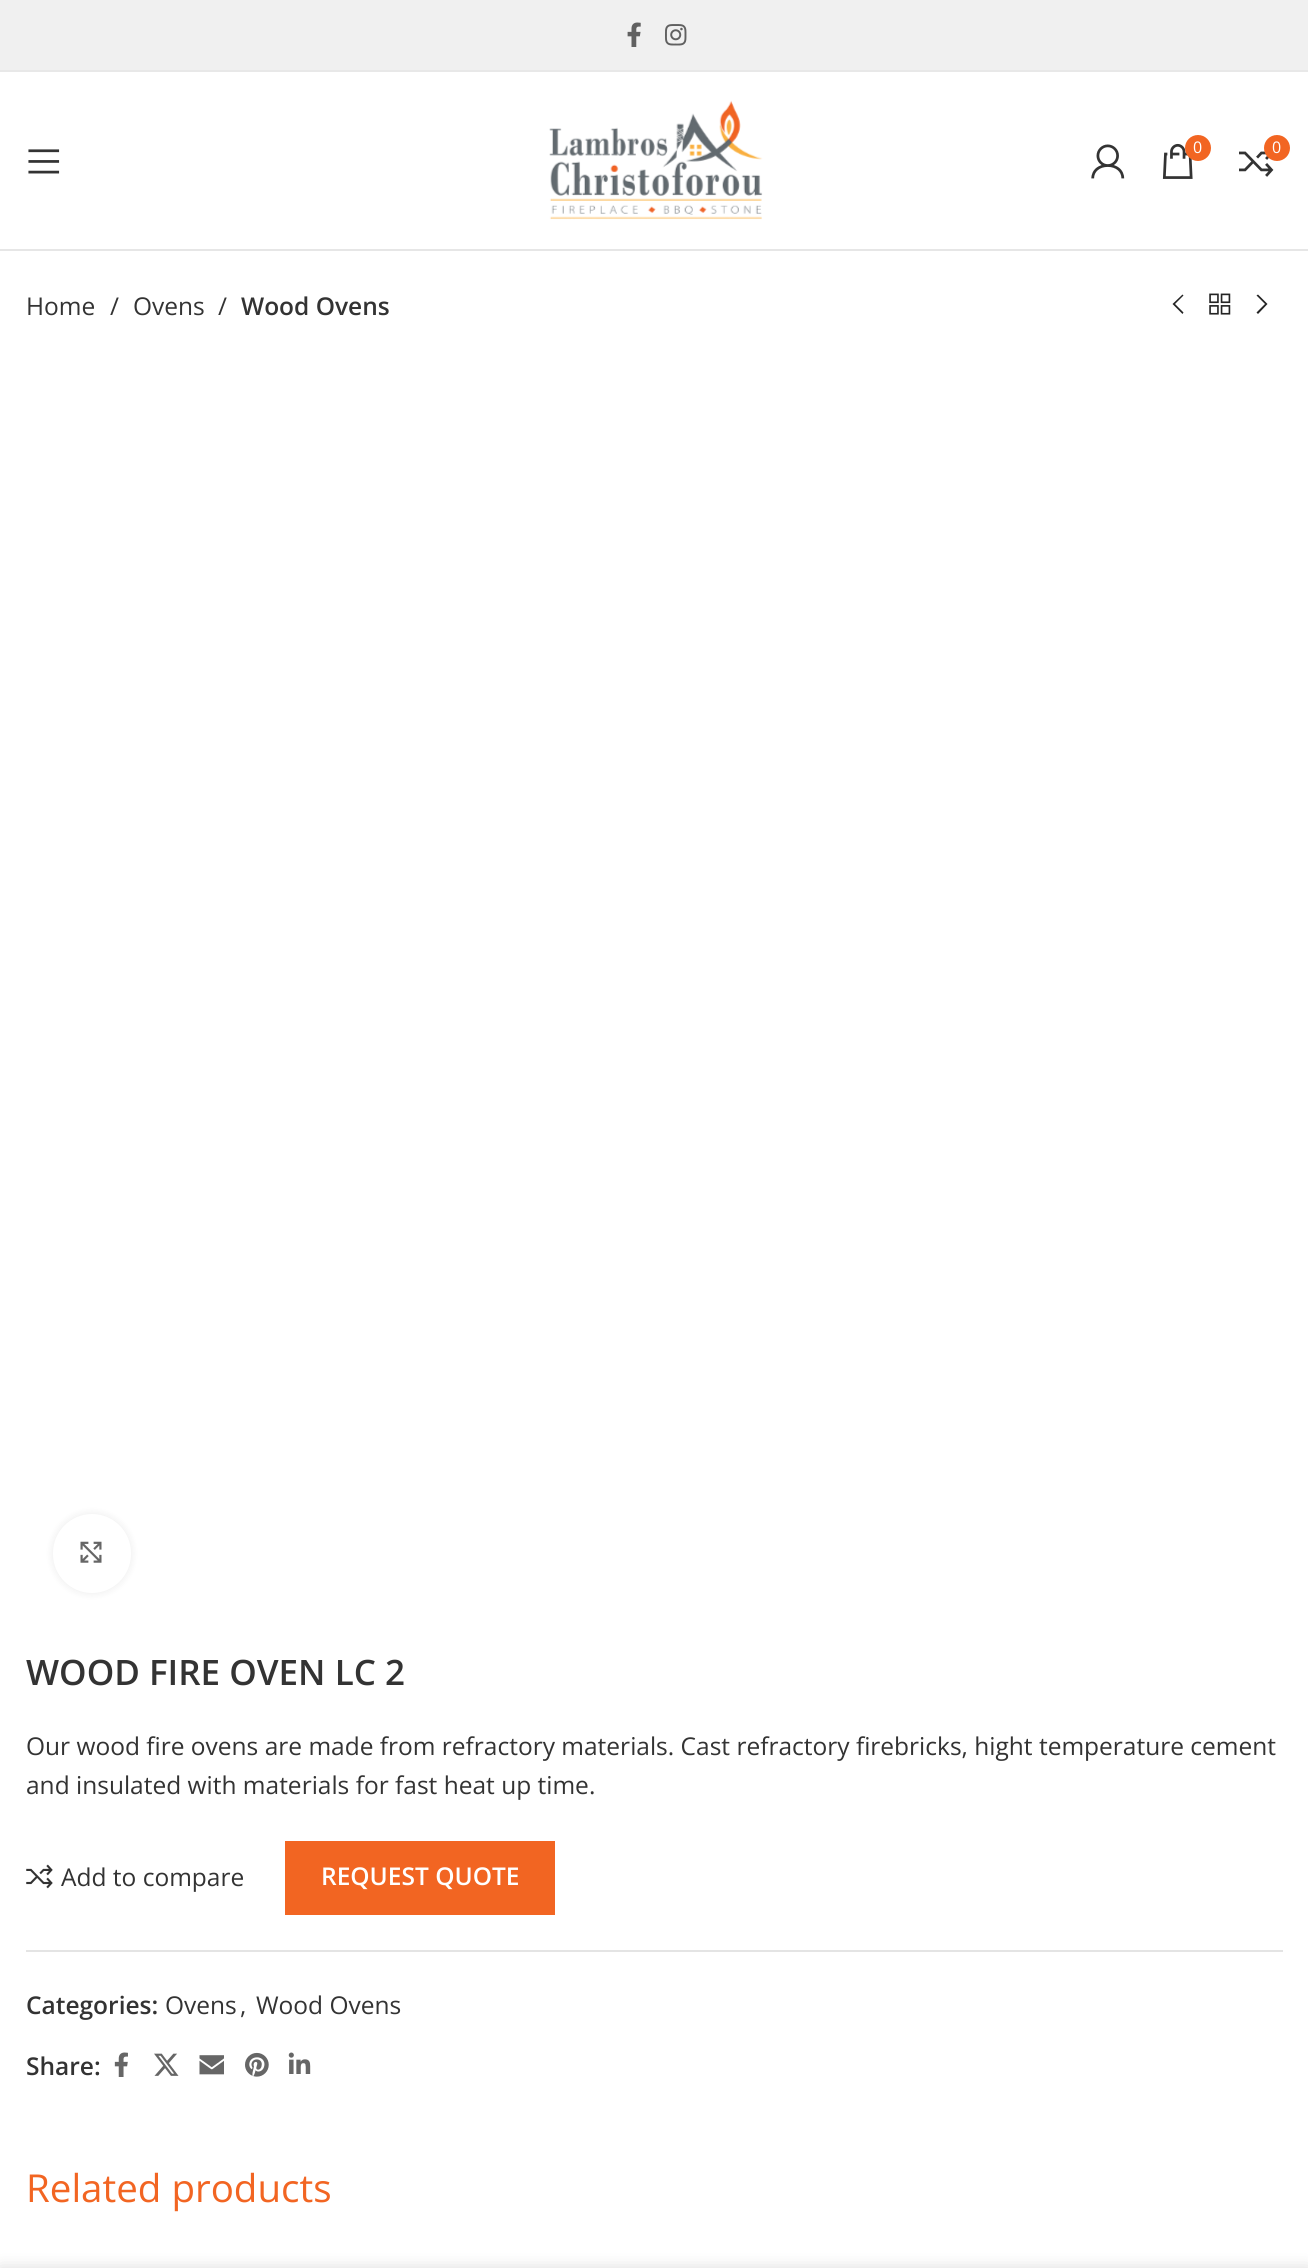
#include <cairo.h>
#include <math.h>
#include <stddef.h>

typedef struct { double x, y; const char *s; } line_t;

static void ink(cairo_t *ctx, unsigned color) {
    cairo_set_source_rgb(ctx, (color >> 16) / 255.0, (color >> 8 & 255) / 255.0, (color & 255) / 255.0);
}

static void round_path(cairo_t *ctx, double x, double y, double w, double h, double r) {
    cairo_new_sub_path(ctx);
    cairo_arc(ctx, x + w - r, y + h - r, r, 0, M_PI / 2);
    cairo_arc(ctx, x + r, y + h - r, r, M_PI / 2, M_PI);
    cairo_arc(ctx, x + r, y + r, r, M_PI, 1.5 * M_PI);
    cairo_arc(ctx, x + w - r, y + r, r, 1.5 * M_PI, 2 * M_PI);
    cairo_close_path(ctx);
}

static void blur_box(cairo_t *ctx, double x, double y, double w, double h, double r, double blur, double alpha) {
    cairo_push_group_with_content(ctx, CAIRO_CONTENT_ALPHA);
    cairo_set_operator(ctx, CAIRO_OPERATOR_SOURCE);
    for (int i = 15; i >= -15 && fmin(w, h) + blur * i / 3 > 0; i -= 2) {
        double e = blur * i / 6;
        cairo_set_source_rgba(ctx, 0, 0, 0, alpha * erfc((i - 1) / 8.5) / 2);
        round_path(ctx, x - e, y - e, w + 2 * e, h + 2 * e, fmax(0, fmin(r + e + blur * .6, fmin(w, h) / 2 + e)));
        cairo_fill(ctx);
    }
    cairo_pattern_t *soft = cairo_pop_group(ctx);
    cairo_mask(ctx, soft);
    cairo_pattern_destroy(soft);
}

static void paste(cairo_t *ctx, const char *path, double x, double y, double w, double h) {
    cairo_surface_t *image = cairo_image_surface_create_from_png(path);
    cairo_save(ctx);
    cairo_set_source_surface(ctx, image, x, y);
    cairo_rectangle(ctx, x, y, w, h);
    cairo_fill(ctx);
    cairo_restore(ctx);
    cairo_surface_destroy(image);
}

int main(void) {
    cairo_surface_t *surface = cairo_image_surface_create(CAIRO_FORMAT_RGB24, 1308, 2268);
    cairo_t *ctx = cairo_create(surface);
    cairo_font_options_t *options = cairo_font_options_create();
    cairo_font_options_set_hint_metrics(options, CAIRO_HINT_METRICS_OFF);
    cairo_font_options_set_hint_style(options, CAIRO_HINT_STYLE_NONE);
    cairo_set_font_options(ctx, options);
    cairo_set_miter_limit(ctx, 4);
    ink(ctx, 0xFFFFFF);
    cairo_paint(ctx);
    ink(ctx, 0xF0F0F0);
    cairo_rectangle(ctx, 0, 0, 1308, 70);
    cairo_fill(ctx);
    ink(ctx, 0xE8E8E8);
    cairo_rectangle(ctx, 0, 70, 1308, 2);
    cairo_fill(ctx);
    paste(ctx, "media/1.png", 627, 22, 14, 25);
    paste(ctx, "media/2.png", 665, 24, 22, 22);
    ink(ctx, 0xE6E6E6);
    cairo_rectangle(ctx, 0, 249, 1308, 2);
    cairo_fill(ctx);
    paste(ctx, "media/3.png", 549, 100, 214, 120);
    paste(ctx, "media/4.png", 1091, 144, 34, 35);
    paste(ctx, "media/5.png", 1162, 143, 31, 36);
    ink(ctx, 0xF26522);
    cairo_arc(ctx, 1198, 148, 13, 0, 2 * M_PI);
    cairo_fill(ctx);
    cairo_select_font_face(ctx, "Open Sans", CAIRO_FONT_SLANT_NORMAL, CAIRO_FONT_WEIGHT_NORMAL);
    cairo_set_font_size(ctx, 16);
    ink(ctx, 0xFFFFFF);
    cairo_move_to(ctx, 1193, 153);
    cairo_show_text(ctx, "0");
    paste(ctx, "media/6.png", 1239, 151, 35, 26);
    ink(ctx, 0xF26522);
    cairo_arc(ctx, 1277, 148, 13, 0, 2 * M_PI);
    cairo_fill(ctx);
    ink(ctx, 0xFFFFFF);
    cairo_move_to(ctx, 1272, 153);
    cairo_show_text(ctx, "0");
    paste(ctx, "media/7.png", 28, 149, 32, 25);
    cairo_set_font_size(ctx, 24.5);
    ink(ctx, 0x333333);
    {
        static const line_t items[] = {
            {26, 315, "Home"},
            {110, 315, "/"},
            {133, 315, "Ovens"},
            {218, 315, "/"},
        };
        for (size_t i = 0; i < sizeof items / sizeof *items; i++) {
            cairo_move_to(ctx, items[i].x, items[i].y);
            cairo_show_text(ctx, items[i].s);
        }
    }
    cairo_select_font_face(ctx, "Open Sans SemiBold", CAIRO_FONT_SLANT_NORMAL, CAIRO_FONT_WEIGHT_NORMAL);
    cairo_move_to(ctx, 241, 315);
    cairo_show_text(ctx, "Wood Ovens");
    ink(ctx, 0x242424);
    cairo_new_path(ctx);
    cairo_move_to(ctx, 1183.5, 295.5);
    cairo_line_to(ctx, 1182.5, 294.5);
    cairo_line_to(ctx, 1172.5, 304);
    cairo_line_to(ctx, 1182.5, 314);
    cairo_line_to(ctx, 1183.5, 312.5);
    cairo_line_to(ctx, 1175, 304);
    cairo_close_path(ctx);
    cairo_fill(ctx);
    paste(ctx, "media/8.png", 1209, 293, 22, 22);
    cairo_new_path(ctx);
    cairo_move_to(ctx, 1256.5, 295.5);
    cairo_line_to(ctx, 1265, 304);
    cairo_line_to(ctx, 1256.5, 312.5);
    cairo_line_to(ctx, 1258, 314);
    cairo_line_to(ctx, 1267.5, 304);
    cairo_line_to(ctx, 1258, 294.5);
    cairo_close_path(ctx);
    cairo_fill(ctx);
    ink(ctx, 0x000000);
    blur_box(ctx, 53, 1514, 78, 79, 39, 4.5, 0.08);
    ink(ctx, 0xFFFFFF);
    round_path(ctx, 53, 1514, 78, 79, 39);
    cairo_fill(ctx);
    paste(ctx, "media/9.png", 80, 1541, 22, 22);
    cairo_set_font_size(ctx, 35);
    ink(ctx, 0x333333);
    cairo_move_to(ctx, 26, 1685);
    cairo_show_text(ctx, "WOOD FIRE OVEN LC 2");
    cairo_select_font_face(ctx, "Open Sans", CAIRO_FONT_SLANT_NORMAL, CAIRO_FONT_WEIGHT_NORMAL);
    cairo_set_font_size(ctx, 24.5);
    cairo_move_to(ctx, 26, 1755);
    cairo_show_text(ctx, "Our wood fire ovens are made from refractory materials. Cast refractory firebricks, hight temperature cement");
    cairo_move_to(ctx, 26, 1794);
    cairo_show_text(ctx, "and insulated with materials for fast heat up time.");
    paste(ctx, "media/10.png", 26, 1864, 27, 25);
    cairo_move_to(ctx, 61, 1886);
    cairo_show_text(ctx, "Add to compare");
    ink(ctx, 0xF26522);
    cairo_rectangle(ctx, 285, 1841, 270, 74);
    cairo_fill(ctx);
    cairo_select_font_face(ctx, "Open Sans SemiBold", CAIRO_FONT_SLANT_NORMAL, CAIRO_FONT_WEIGHT_NORMAL);
    ink(ctx, 0xFFFFFF);
    cairo_move_to(ctx, 321, 1885);
    cairo_show_text(ctx, "REQUEST QUOTE");
    ink(ctx, 0xE4E4E4);
    cairo_rectangle(ctx, 26, 1950, 1257, 2);
    cairo_fill(ctx);
    ink(ctx, 0x333333);
    cairo_move_to(ctx, 26, 2014);
    cairo_show_text(ctx, "Categories:");
    cairo_select_font_face(ctx, "Open Sans", CAIRO_FONT_SLANT_NORMAL, CAIRO_FONT_WEIGHT_NORMAL);
    {
        static const line_t items[] = {
            {165, 2014, "Ovens"},
            {240, 2014, ","},
            {256, 2014, "Wood Ovens"},
        };
        for (size_t i = 0; i < sizeof items / sizeof *items; i++) {
            cairo_move_to(ctx, items[i].x, items[i].y);
            cairo_show_text(ctx, items[i].s);
        }
    }
    cairo_select_font_face(ctx, "Open Sans SemiBold", CAIRO_FONT_SLANT_NORMAL, CAIRO_FONT_WEIGHT_NORMAL);
    cairo_move_to(ctx, 26, 2075);
    cairo_show_text(ctx, "Share:");
    paste(ctx, "media/11.png", 114, 2052, 14, 25);
    paste(ctx, "media/12.png", 154, 2053, 25, 23);
    paste(ctx, "media/13.png", 199, 2055, 25, 20);
    paste(ctx, "media/14.png", 245, 2052, 24, 25);
    paste(ctx, "media/15.png", 288, 2052, 23, 22);
    cairo_select_font_face(ctx, "Open Sans", CAIRO_FONT_SLANT_NORMAL, CAIRO_FONT_WEIGHT_NORMAL);
    cairo_set_font_size(ctx, 38.5);
    ink(ctx, 0xF26522);
    cairo_move_to(ctx, 26, 2202);
    cairo_show_text(ctx, "Related products");
    ink(ctx, 0x000000);
    blur_box(ctx, 0, 2268, 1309, 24, 0, 8, 0.14);
    cairo_surface_write_to_png(surface, "image.png");
    cairo_font_options_destroy(options);
    cairo_destroy(ctx);
    cairo_surface_destroy(surface);
    return 0;
}
